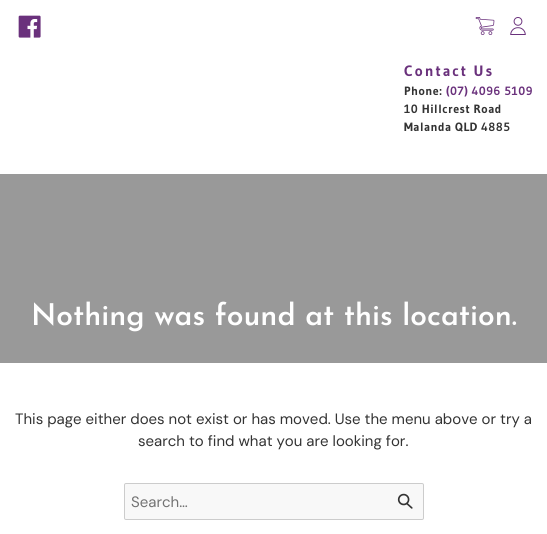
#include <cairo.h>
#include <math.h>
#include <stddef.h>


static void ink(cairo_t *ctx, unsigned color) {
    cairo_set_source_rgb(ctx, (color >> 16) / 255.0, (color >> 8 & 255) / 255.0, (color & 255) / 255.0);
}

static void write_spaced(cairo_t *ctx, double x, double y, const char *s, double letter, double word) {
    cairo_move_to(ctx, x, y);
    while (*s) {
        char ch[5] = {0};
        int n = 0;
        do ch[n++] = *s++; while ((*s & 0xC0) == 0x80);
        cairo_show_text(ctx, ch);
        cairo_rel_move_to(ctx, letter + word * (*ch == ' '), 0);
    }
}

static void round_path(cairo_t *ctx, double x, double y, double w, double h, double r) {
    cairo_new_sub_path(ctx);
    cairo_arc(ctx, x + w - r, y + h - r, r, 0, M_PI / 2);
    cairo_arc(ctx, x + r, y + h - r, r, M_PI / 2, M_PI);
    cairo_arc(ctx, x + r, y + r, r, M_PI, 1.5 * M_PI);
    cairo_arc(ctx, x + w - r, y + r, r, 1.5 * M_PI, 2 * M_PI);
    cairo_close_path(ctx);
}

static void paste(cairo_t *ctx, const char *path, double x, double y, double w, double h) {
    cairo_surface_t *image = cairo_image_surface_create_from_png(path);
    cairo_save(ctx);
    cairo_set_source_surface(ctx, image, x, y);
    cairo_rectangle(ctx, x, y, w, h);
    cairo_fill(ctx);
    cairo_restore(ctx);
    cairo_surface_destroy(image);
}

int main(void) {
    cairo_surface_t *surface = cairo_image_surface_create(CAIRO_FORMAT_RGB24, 547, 534);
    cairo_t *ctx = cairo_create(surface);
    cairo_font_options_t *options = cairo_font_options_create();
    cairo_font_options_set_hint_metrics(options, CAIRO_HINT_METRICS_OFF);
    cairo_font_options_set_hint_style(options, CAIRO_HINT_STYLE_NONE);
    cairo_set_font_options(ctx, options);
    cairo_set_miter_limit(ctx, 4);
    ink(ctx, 0xFFFFFF);
    cairo_paint(ctx);
    paste(ctx, "media/1.png", 18, 15, 23, 23);
    paste(ctx, "media/2.png", 475, 17, 20, 18);
    paste(ctx, "media/3.png", 510, 17, 16, 18);
    cairo_select_font_face(ctx, "Gudea", CAIRO_FONT_SLANT_NORMAL, CAIRO_FONT_WEIGHT_BOLD);
    cairo_set_font_size(ctx, 15);
    ink(ctx, 0x6A317C);
    write_spaced(ctx, 404, 76, "Contact Us", 2, 0);
    cairo_set_font_size(ctx, 12);
    ink(ctx, 0x333333);
    write_spaced(ctx, 404, 95, "Phone:", 0.5, 0);
    ink(ctx, 0x6A317C);
    write_spaced(ctx, 446, 95, "(07) 4096 5109", 0.5, 0);
    ink(ctx, 0x333333);
    write_spaced(ctx, 404, 113, "10 Hillcrest Road", 0.5, 0);
    write_spaced(ctx, 404, 131, "Malanda QLD 4885", 0.5, 0);
    ink(ctx, 0x999999);
    cairo_rectangle(ctx, 0, 174, 547, 189);
    cairo_fill(ctx);
    cairo_select_font_face(ctx, "Josefin Sans SemiBold", CAIRO_FONT_SLANT_NORMAL, CAIRO_FONT_WEIGHT_NORMAL);
    cairo_set_font_size(ctx, 30);
    ink(ctx, 0xFFFFFF);
    cairo_move_to(ctx, 31, 325);
    cairo_show_text(ctx, "Nothing was found at this location.");
    cairo_select_font_face(ctx, "DM Sans", CAIRO_FONT_SLANT_NORMAL, CAIRO_FONT_WEIGHT_NORMAL);
    cairo_set_font_size(ctx, 15);
    ink(ctx, 0x333333);
    cairo_move_to(ctx, 15, 424);
    cairo_show_text(ctx, "This page either does not exist or has moved. Use the menu above or try a");
    cairo_move_to(ctx, 138, 446);
    cairo_show_text(ctx, "search to find what you are looking for.");
    ink(ctx, 0xF8F8F8);
    round_path(ctx, 124.5, 483.5, 299, 36, 1.5);
    cairo_fill_preserve(ctx);
    ink(ctx, 0xCCCCCC);
    cairo_set_line_width(ctx, 1);
    cairo_stroke(ctx);
    ink(ctx, 0x727272);
    cairo_move_to(ctx, 131, 507);
    cairo_show_text(ctx, "Search…");
    paste(ctx, "media/4.png", 397, 493, 16, 16);
    cairo_surface_write_to_png(surface, "image.png");
    cairo_font_options_destroy(options);
    cairo_destroy(ctx);
    cairo_surface_destroy(surface);
    return 0;
}
